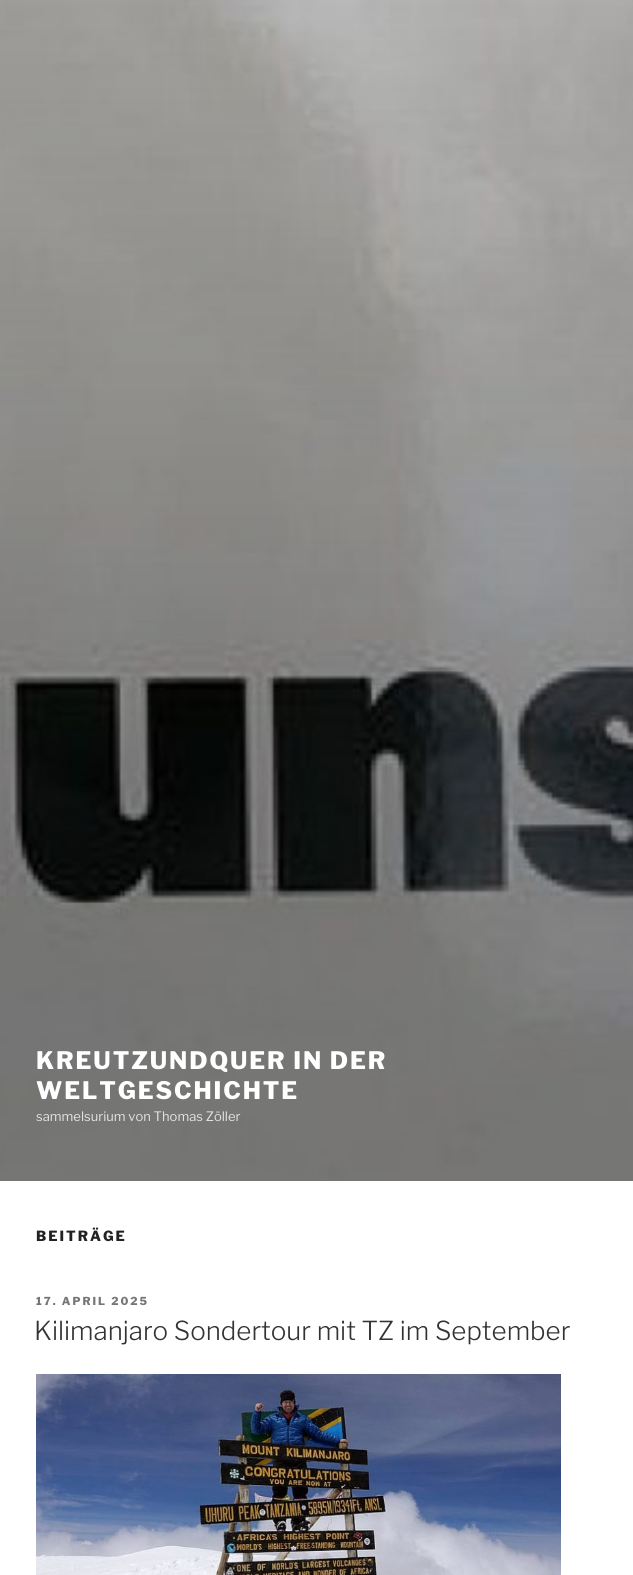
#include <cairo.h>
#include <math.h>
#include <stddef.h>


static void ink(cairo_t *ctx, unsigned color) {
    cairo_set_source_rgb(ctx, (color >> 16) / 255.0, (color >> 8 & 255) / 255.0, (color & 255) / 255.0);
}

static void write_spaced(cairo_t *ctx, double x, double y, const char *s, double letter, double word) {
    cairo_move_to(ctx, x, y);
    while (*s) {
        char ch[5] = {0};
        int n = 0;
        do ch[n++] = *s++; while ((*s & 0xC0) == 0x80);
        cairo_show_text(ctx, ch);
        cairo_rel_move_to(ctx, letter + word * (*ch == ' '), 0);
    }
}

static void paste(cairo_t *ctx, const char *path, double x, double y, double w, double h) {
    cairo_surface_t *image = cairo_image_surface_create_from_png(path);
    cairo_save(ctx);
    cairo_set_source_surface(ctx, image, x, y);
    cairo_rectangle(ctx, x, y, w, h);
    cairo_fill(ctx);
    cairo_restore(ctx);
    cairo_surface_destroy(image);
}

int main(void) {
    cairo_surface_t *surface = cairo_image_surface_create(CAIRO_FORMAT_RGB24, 633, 1575);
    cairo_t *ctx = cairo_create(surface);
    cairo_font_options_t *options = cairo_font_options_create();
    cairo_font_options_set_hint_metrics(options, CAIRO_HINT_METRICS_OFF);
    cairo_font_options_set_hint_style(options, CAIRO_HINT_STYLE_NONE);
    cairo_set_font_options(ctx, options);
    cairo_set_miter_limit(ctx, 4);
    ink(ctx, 0xFFFFFF);
    cairo_paint(ctx);
    paste(ctx, "media/1.png", 0, 0, 633, 1181);
    cairo_select_font_face(ctx, "Libre Franklin Thin", CAIRO_FONT_SLANT_NORMAL, CAIRO_FONT_WEIGHT_NORMAL);
    cairo_set_font_size(ctx, 24);
    ink(ctx, 0xFFFFFF);
    write_spaced(ctx, 36, 1069, "KREUTZUNDQUER IN DER", 1.9, 0);
    write_spaced(ctx, 36, 1099, "WELTGESCHICHTE", 1.9, 0);
    cairo_select_font_face(ctx, "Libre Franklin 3 Thin", CAIRO_FONT_SLANT_NORMAL, CAIRO_FONT_WEIGHT_NORMAL);
    cairo_set_font_size(ctx, 13);
    ink(ctx, 0xE3E3E3);
    cairo_move_to(ctx, 36, 1121);
    cairo_show_text(ctx, "sammelsurium von Thomas Zöller");
    cairo_select_font_face(ctx, "Libre Franklin Thin", CAIRO_FONT_SLANT_NORMAL, CAIRO_FONT_WEIGHT_NORMAL);
    cairo_set_font_size(ctx, 14);
    ink(ctx, 0x222222);
    write_spaced(ctx, 36, 1241, "BEITRÄGE", 2, 0);
    cairo_set_font_size(ctx, 11);
    ink(ctx, 0x767676);
    write_spaced(ctx, 36, 1305, "17. APRIL 2025", 2, 0);
    cairo_select_font_face(ctx, "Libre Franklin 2 Thin", CAIRO_FONT_SLANT_NORMAL, CAIRO_FONT_WEIGHT_NORMAL);
    cairo_set_font_size(ctx, 26);
    ink(ctx, 0x333333);
    cairo_move_to(ctx, 34, 1340);
    cairo_show_text(ctx, "Kilimanjaro Sondertour mit TZ im September");
    paste(ctx, "media/2.png", 36, 1374, 525, 201);
    cairo_surface_write_to_png(surface, "image.png");
    cairo_font_options_destroy(options);
    cairo_destroy(ctx);
    cairo_surface_destroy(surface);
    return 0;
}
